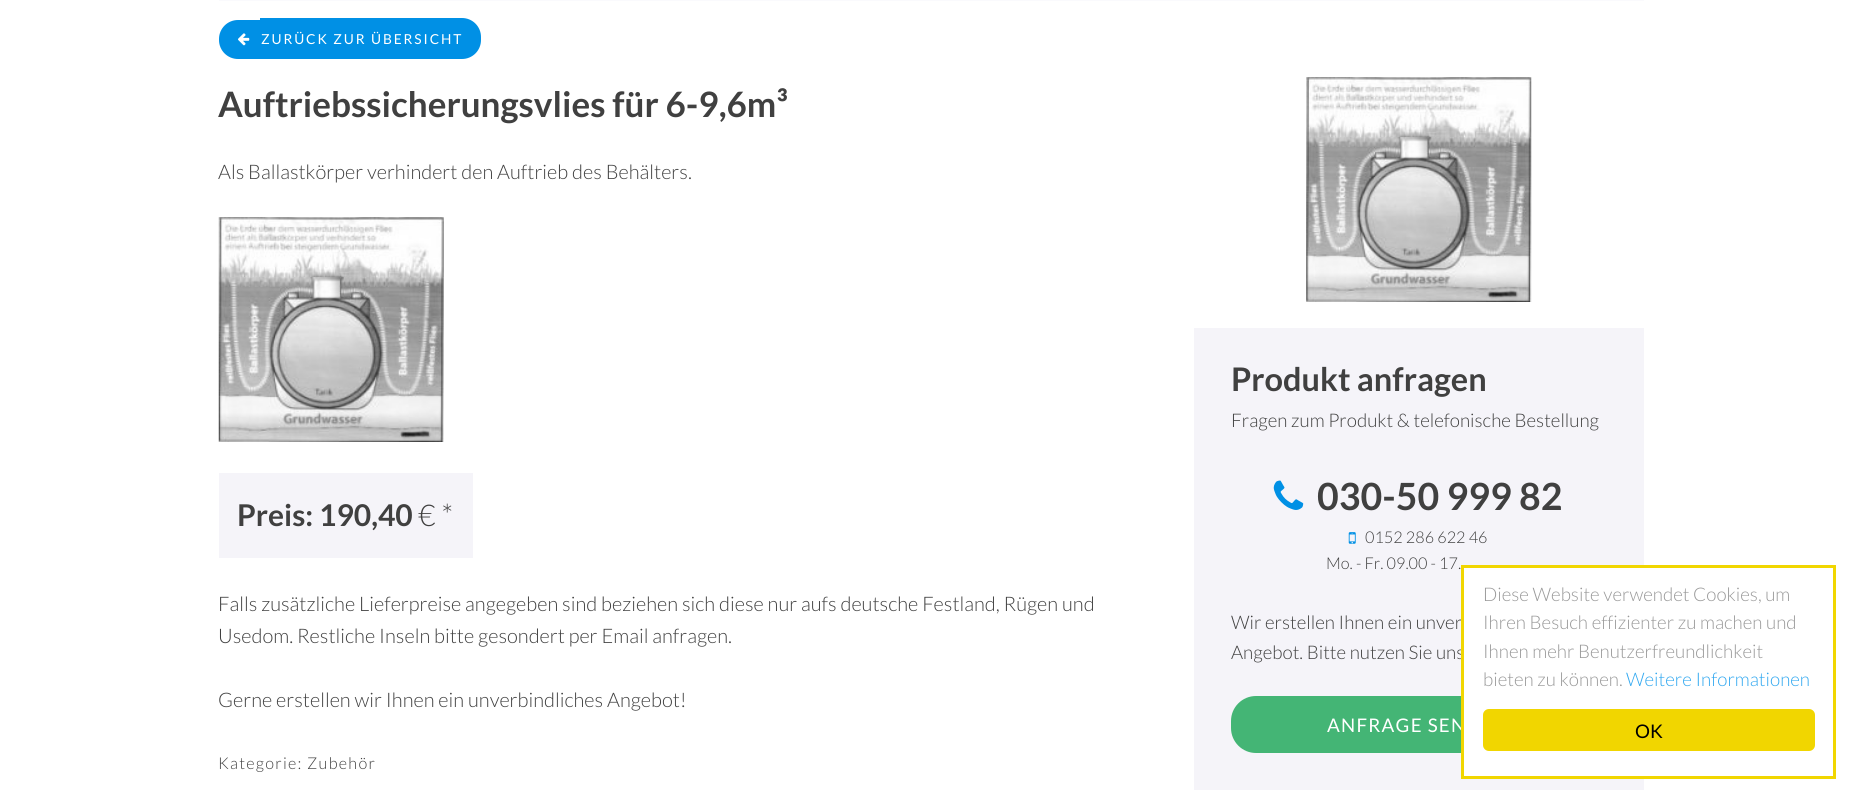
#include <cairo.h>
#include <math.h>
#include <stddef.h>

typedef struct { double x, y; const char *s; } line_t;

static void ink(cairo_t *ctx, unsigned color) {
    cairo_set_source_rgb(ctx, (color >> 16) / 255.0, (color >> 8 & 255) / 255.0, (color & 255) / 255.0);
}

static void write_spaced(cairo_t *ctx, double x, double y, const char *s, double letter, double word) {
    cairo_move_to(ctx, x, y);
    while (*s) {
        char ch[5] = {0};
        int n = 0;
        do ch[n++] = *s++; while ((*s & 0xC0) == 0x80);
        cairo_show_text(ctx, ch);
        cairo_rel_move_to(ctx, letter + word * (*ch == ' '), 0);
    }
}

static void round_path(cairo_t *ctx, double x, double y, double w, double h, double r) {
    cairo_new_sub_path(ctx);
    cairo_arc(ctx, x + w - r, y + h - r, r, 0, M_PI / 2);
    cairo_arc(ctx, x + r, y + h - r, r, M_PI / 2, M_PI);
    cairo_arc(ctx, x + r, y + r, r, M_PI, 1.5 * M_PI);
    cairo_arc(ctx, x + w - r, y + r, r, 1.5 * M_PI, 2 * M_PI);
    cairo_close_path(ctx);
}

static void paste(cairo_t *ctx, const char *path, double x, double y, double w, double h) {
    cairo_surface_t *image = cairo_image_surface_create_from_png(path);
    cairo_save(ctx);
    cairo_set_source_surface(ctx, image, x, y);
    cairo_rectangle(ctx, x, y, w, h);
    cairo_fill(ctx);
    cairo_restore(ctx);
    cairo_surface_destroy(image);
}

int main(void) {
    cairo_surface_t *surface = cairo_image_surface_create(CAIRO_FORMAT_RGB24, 1861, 803);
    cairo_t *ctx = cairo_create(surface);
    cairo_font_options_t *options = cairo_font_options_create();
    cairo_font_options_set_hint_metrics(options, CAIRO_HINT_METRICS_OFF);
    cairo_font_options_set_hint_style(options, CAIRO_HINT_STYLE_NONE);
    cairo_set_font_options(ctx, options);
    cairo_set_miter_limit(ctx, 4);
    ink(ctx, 0xFFFFFF);
    cairo_paint(ctx);
    ink(ctx, 0xFAFAFD);
    cairo_rectangle(ctx, 219, 0, 1425, 1);
    cairo_fill(ctx);
    ink(ctx, 0x0090E5);
    cairo_new_path(ctx);
    cairo_move_to(ctx, 238, 20);
    cairo_line_to(ctx, 260, 20);
    cairo_line_to(ctx, 260, 59);
    cairo_line_to(ctx, 238, 59);
    cairo_curve_to(ctx, 227.5, 59, 219, 50.5, 219, 40);
    cairo_line_to(ctx, 219, 39);
    cairo_curve_to(ctx, 219, 28.5, 227.5, 20, 238, 20);
    cairo_close_path(ctx);
    cairo_fill(ctx);
    cairo_new_path(ctx);
    cairo_move_to(ctx, 260, 18);
    cairo_line_to(ctx, 462, 18);
    cairo_curve_to(ctx, 472.5, 18, 481, 26.5, 481, 37);
    cairo_line_to(ctx, 481, 40);
    cairo_curve_to(ctx, 481, 50.5, 472.5, 59, 462, 59);
    cairo_line_to(ctx, 260, 59);
    cairo_close_path(ctx);
    cairo_fill(ctx);
    paste(ctx, "media/1.png", 238, 33, 12, 13);
    cairo_select_font_face(ctx, "Lato", CAIRO_FONT_SLANT_NORMAL, CAIRO_FONT_WEIGHT_NORMAL);
    cairo_set_font_size(ctx, 13.75);
    ink(ctx, 0xFFFFFF);
    write_spaced(ctx, 261, 44, "ZURÜCK ZUR ÜBERSICHT", 1.9, 0);
    cairo_select_font_face(ctx, "Lato", CAIRO_FONT_SLANT_NORMAL, CAIRO_FONT_WEIGHT_BOLD);
    cairo_set_font_size(ctx, 35);
    ink(ctx, 0x404040);
    cairo_move_to(ctx, 218, 117);
    cairo_show_text(ctx, "Auftriebssicherungsvlies für 6-9,6m³");
    cairo_select_font_face(ctx, "Lato Light", CAIRO_FONT_SLANT_NORMAL, CAIRO_FONT_WEIGHT_NORMAL);
    cairo_set_font_size(ctx, 20);
    cairo_move_to(ctx, 218, 179);
    cairo_show_text(ctx, "Als Ballastkörper verhindert den Auftrieb des Behälters.");
    paste(ctx, "media/2.png", 218, 217, 226, 225);
    ink(ctx, 0xF5F4F9);
    cairo_rectangle(ctx, 219, 473, 254, 85);
    cairo_fill(ctx);
    cairo_select_font_face(ctx, "Lato", CAIRO_FONT_SLANT_NORMAL, CAIRO_FONT_WEIGHT_BOLD);
    cairo_set_font_size(ctx, 30);
    ink(ctx, 0x404040);
    cairo_move_to(ctx, 237, 526);
    cairo_show_text(ctx, "Preis: 190,40");
    cairo_select_font_face(ctx, "Lato Light", CAIRO_FONT_SLANT_NORMAL, CAIRO_FONT_WEIGHT_NORMAL);
    cairo_move_to(ctx, 418, 526);
    cairo_show_text(ctx, "€ *");
    cairo_set_font_size(ctx, 20);
    {
        static const line_t items[] = {
            {218, 611, "Falls zusätzliche Lieferpreise angegeben sind beziehen sich diese nur aufs deutsche Festland, Rügen und"},
            {218, 643, "Usedom. Restliche Inseln bitte gesondert per Email anfragen."},
            {218, 707, "Gerne erstellen wir Ihnen ein unverbindliches Angebot!"},
        };
        for (size_t i = 0; i < sizeof items / sizeof *items; i++) {
            cairo_move_to(ctx, items[i].x, items[i].y);
            cairo_show_text(ctx, items[i].s);
        }
    }
    cairo_set_font_size(ctx, 16.25);
    write_spaced(ctx, 218, 769, "Kategorie: Zubehör", 1.25, 0);
    paste(ctx, "media/3.png", 1306, 77, 226, 225);
    ink(ctx, 0xF5F4F9);
    cairo_rectangle(ctx, 1194, 328, 450, 462);
    cairo_fill(ctx);
    cairo_select_font_face(ctx, "Lato", CAIRO_FONT_SLANT_NORMAL, CAIRO_FONT_WEIGHT_BOLD);
    cairo_set_font_size(ctx, 32.5);
    ink(ctx, 0x404040);
    cairo_move_to(ctx, 1231, 391);
    cairo_show_text(ctx, "Produkt anfragen");
    cairo_select_font_face(ctx, "Lato Light", CAIRO_FONT_SLANT_NORMAL, CAIRO_FONT_WEIGHT_NORMAL);
    cairo_set_font_size(ctx, 18.75);
    cairo_move_to(ctx, 1231, 427);
    cairo_show_text(ctx, "Fragen zum Produkt & telefonische Bestellung");
    paste(ctx, "media/4.png", 1273, 480, 31, 30);
    cairo_select_font_face(ctx, "Lato", CAIRO_FONT_SLANT_NORMAL, CAIRO_FONT_WEIGHT_BOLD);
    cairo_set_font_size(ctx, 37.5);
    cairo_move_to(ctx, 1317, 510);
    cairo_show_text(ctx, "030-50 999 82");
    paste(ctx, "media/5.png", 1348, 532, 8, 12);
    cairo_select_font_face(ctx, "Lato Light", CAIRO_FONT_SLANT_NORMAL, CAIRO_FONT_WEIGHT_NORMAL);
    cairo_set_font_size(ctx, 16.25);
    cairo_move_to(ctx, 1365, 543);
    cairo_show_text(ctx, "0152 286 622 46");
    cairo_move_to(ctx, 1326, 569);
    cairo_show_text(ctx, "Mo. - Fr. 09.00 - 17.");
    cairo_set_font_size(ctx, 18.75);
    cairo_move_to(ctx, 1231, 629);
    cairo_show_text(ctx, "Wir erstellen Ihnen ein unver");
    cairo_move_to(ctx, 1231, 659);
    cairo_show_text(ctx, "Angebot. Bitte nutzen Sie uns");
    ink(ctx, 0x44B575);
    round_path(ctx, 1231, 696, 375, 57, 25);
    cairo_fill(ctx);
    cairo_select_font_face(ctx, "Lato", CAIRO_FONT_SLANT_NORMAL, CAIRO_FONT_WEIGHT_NORMAL);
    ink(ctx, 0xFFFFFF);
    write_spaced(ctx, 1327, 732, "ANFRAGE SEN", 1.25, 0);
    cairo_rectangle(ctx, 1464, 568, 180, 208);
    cairo_fill(ctx);
    cairo_rectangle(ctx, 1462.5, 566.5, 372, 211);
    ink(ctx, 0xF1D600);
    cairo_set_line_width(ctx, 3);
    cairo_stroke(ctx);
    cairo_select_font_face(ctx, "Lato Light", CAIRO_FONT_SLANT_NORMAL, CAIRO_FONT_WEIGHT_NORMAL);
    ink(ctx, 0x999999);
    {
        static const line_t items[] = {
            {1483, 601, "Diese Website verwendet Cookies, um"},
            {1483, 629, "Ihren Besuch effizienter zu machen und"},
            {1483, 658, "Ihnen mehr Benutzerfreundlichkeit"},
            {1483, 686, "bieten zu können."},
        };
        for (size_t i = 0; i < sizeof items / sizeof *items; i++) {
            cairo_move_to(ctx, items[i].x, items[i].y);
            cairo_show_text(ctx, items[i].s);
        }
    }
    ink(ctx, 0x31A8F0);
    cairo_move_to(ctx, 1626, 686);
    cairo_show_text(ctx, "Weitere Informationen");
    ink(ctx, 0xF1D600);
    round_path(ctx, 1483, 709, 332, 42, 6);
    cairo_fill(ctx);
    cairo_select_font_face(ctx, "Lato", CAIRO_FONT_SLANT_NORMAL, CAIRO_FONT_WEIGHT_NORMAL);
    ink(ctx, 0x000000);
    cairo_move_to(ctx, 1635, 738);
    cairo_show_text(ctx, "OK");
    cairo_surface_write_to_png(surface, "image.png");
    cairo_font_options_destroy(options);
    cairo_destroy(ctx);
    cairo_surface_destroy(surface);
    return 0;
}
